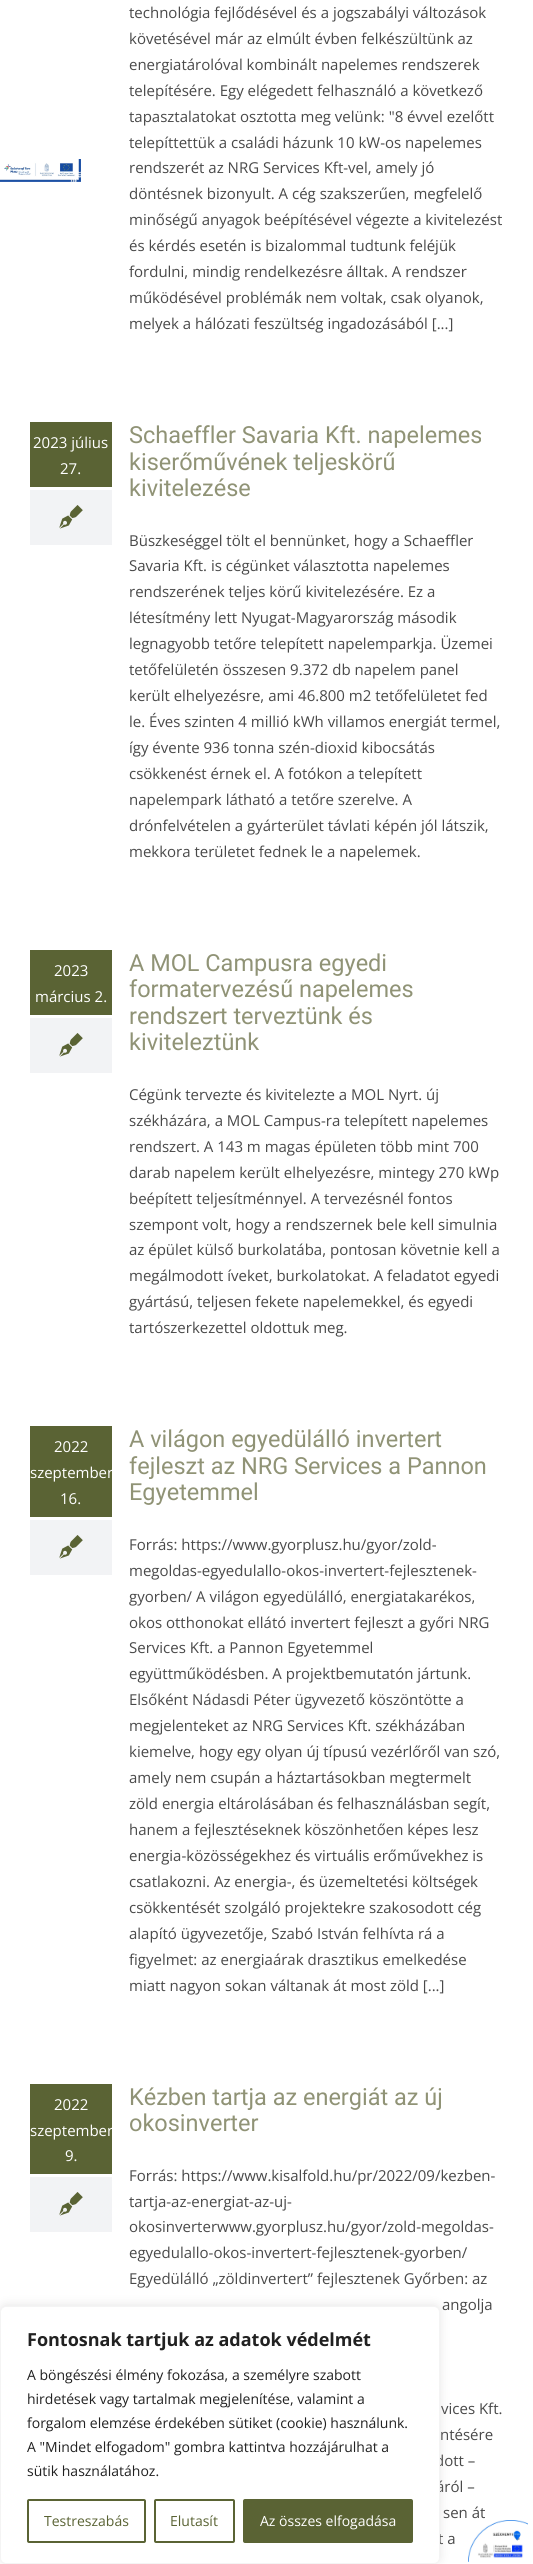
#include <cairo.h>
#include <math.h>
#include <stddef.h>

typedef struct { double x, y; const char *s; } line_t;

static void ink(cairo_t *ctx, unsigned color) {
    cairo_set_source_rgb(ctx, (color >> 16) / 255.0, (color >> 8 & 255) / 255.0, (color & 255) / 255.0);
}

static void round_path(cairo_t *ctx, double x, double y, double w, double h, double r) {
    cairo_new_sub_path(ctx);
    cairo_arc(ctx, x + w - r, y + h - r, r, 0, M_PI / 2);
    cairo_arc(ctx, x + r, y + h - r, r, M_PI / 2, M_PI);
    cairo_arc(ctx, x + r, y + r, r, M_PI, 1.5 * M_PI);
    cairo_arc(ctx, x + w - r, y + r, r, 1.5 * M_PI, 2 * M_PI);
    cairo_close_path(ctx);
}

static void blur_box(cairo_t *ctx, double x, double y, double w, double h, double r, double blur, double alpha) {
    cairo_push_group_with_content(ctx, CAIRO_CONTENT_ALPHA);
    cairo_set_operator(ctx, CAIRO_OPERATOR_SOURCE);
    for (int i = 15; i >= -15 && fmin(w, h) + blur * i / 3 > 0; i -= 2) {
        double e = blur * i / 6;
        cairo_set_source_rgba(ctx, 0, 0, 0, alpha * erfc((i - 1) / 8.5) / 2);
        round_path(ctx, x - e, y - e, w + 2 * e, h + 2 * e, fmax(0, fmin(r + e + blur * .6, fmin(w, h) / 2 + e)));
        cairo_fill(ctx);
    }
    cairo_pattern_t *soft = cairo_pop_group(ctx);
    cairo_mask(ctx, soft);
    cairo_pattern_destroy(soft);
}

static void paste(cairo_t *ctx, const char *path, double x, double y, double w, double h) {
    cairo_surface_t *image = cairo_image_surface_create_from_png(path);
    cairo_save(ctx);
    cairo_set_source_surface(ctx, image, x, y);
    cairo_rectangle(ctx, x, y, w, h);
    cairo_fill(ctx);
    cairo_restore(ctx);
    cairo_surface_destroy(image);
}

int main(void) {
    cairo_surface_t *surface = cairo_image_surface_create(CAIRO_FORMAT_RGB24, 533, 2564);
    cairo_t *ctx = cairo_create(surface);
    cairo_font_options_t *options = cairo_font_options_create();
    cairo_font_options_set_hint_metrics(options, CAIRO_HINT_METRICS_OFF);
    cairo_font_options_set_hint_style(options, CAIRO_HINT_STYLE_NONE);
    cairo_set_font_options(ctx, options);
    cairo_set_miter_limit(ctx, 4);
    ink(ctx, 0xFFFFFF);
    cairo_paint(ctx);
    cairo_select_font_face(ctx, "Open Sans", CAIRO_FONT_SLANT_NORMAL, CAIRO_FONT_WEIGHT_NORMAL);
    cairo_set_font_size(ctx, 15);
    ink(ctx, 0x494949);
    {
        static const line_t items[] = {
            {129, 18, "technológia fejlődésével és a jogszabályi változások"},
            {129, 44, "követésével már az elmúlt évben felkészültünk az"},
            {129, 70, "energiatárolóval kombinált napelemes rendszerek"},
            {129, 96, "telepítésére. Egy elégedett felhasználó a következő"},
            {129, 122, "tapasztalatokat osztotta meg velünk: \"8 évvel ezelőtt"},
            {129, 148, "telepíttettük a családi házunk 10 kW-os napelemes"},
            {129, 173, "rendszerét az NRG Services Kft-vel, amely jó"},
            {129, 199, "döntésnek bizonyult. A cég szakszerűen, megfelelő"},
            {129, 225, "minőségű anyagok beépítésével végezte a kivitelezést"},
            {129, 251, "és kérdés esetén is bizalommal tudtunk feléjük"},
            {129, 277, "fordulni, mindig rendelkezésre álltak. A rendszer"},
            {129, 303, "működésével problémák nem voltak, csak olyanok,"},
            {129, 329, "melyek a hálózati feszültség ingadozásából [...]"},
        };
        for (size_t i = 0; i < sizeof items / sizeof *items; i++) {
            cairo_move_to(ctx, items[i].x, items[i].y);
            cairo_show_text(ctx, items[i].s);
        }
    }
    ink(ctx, 0x5A6334);
    cairo_rectangle(ctx, 30, 422, 82, 65);
    cairo_fill(ctx);
    ink(ctx, 0xFFFFFF);
    cairo_move_to(ctx, 33, 448);
    cairo_show_text(ctx, "2023 július");
    cairo_move_to(ctx, 60, 474);
    cairo_show_text(ctx, "27.");
    ink(ctx, 0xF2F3F5);
    cairo_rectangle(ctx, 30, 490, 82, 55);
    cairo_fill(ctx);
    paste(ctx, "media/1.png", 59, 505, 24, 24);
    cairo_select_font_face(ctx, "Roboto", CAIRO_FONT_SLANT_NORMAL, CAIRO_FONT_WEIGHT_NORMAL);
    cairo_set_font_size(ctx, 23.5);
    ink(ctx, 0x909376);
    {
        static const line_t items[] = {
            {129, 443, "Schaeffler Savaria Kft. napelemes"},
            {129, 470, "kiserőművének teljeskörű"},
            {129, 496, "kivitelezése"},
        };
        for (size_t i = 0; i < sizeof items / sizeof *items; i++) {
            cairo_move_to(ctx, items[i].x, items[i].y);
            cairo_show_text(ctx, items[i].s);
        }
    }
    cairo_select_font_face(ctx, "Open Sans", CAIRO_FONT_SLANT_NORMAL, CAIRO_FONT_WEIGHT_NORMAL);
    cairo_set_font_size(ctx, 15);
    ink(ctx, 0x494949);
    {
        static const line_t items[] = {
            {129, 546, "Büszkeséggel tölt el bennünket, hogy a Schaeffler"},
            {129, 571, "Savaria Kft. is cégünket választotta napelemes"},
            {129, 597, "rendszerének teljes körű kivitelezésére. Ez a"},
            {129, 623, "létesítmény lett Nyugat-Magyarország második"},
            {129, 649, "legnagyobb tetőre telepített napelemparkja. Üzemei"},
            {129, 675, "tetőfelületén összesen 9.372 db napelem panel"},
            {129, 701, "került elhelyezésre, ami 46.800 m2 tetőfelületet fed"},
            {129, 727, "le. Éves szinten 4 millió kWh villamos energiát termel,"},
            {129, 753, "így évente 936 tonna szén-dioxid kibocsátás"},
            {129, 779, "csökkenést érnek el. A fotókon a telepített"},
            {129, 805, "napelempark látható a tetőre szerelve. A"},
            {129, 831, "drónfelvételen a gyárterület távlati képén jól látszik,"},
            {129, 857, "mekkora területet fednek le a napelemek."},
        };
        for (size_t i = 0; i < sizeof items / sizeof *items; i++) {
            cairo_move_to(ctx, items[i].x, items[i].y);
            cairo_show_text(ctx, items[i].s);
        }
    }
    ink(ctx, 0x5A6334);
    cairo_rectangle(ctx, 30, 950, 82, 65);
    cairo_fill(ctx);
    ink(ctx, 0xFFFFFF);
    cairo_move_to(ctx, 54, 976);
    cairo_show_text(ctx, "2023");
    cairo_move_to(ctx, 35, 1002);
    cairo_show_text(ctx, "március 2.");
    ink(ctx, 0xF2F3F5);
    cairo_rectangle(ctx, 30, 1018, 82, 55);
    cairo_fill(ctx);
    paste(ctx, "media/1.png", 59, 1033, 24, 24);
    cairo_select_font_face(ctx, "Roboto", CAIRO_FONT_SLANT_NORMAL, CAIRO_FONT_WEIGHT_NORMAL);
    cairo_set_font_size(ctx, 23.5);
    ink(ctx, 0x909376);
    {
        static const line_t items[] = {
            {129, 971, "A MOL Campusra egyedi"},
            {129, 997, "formatervezésű napelemes"},
            {129, 1024, "rendszert terveztünk és"},
            {129, 1050, "kiviteleztünk"},
        };
        for (size_t i = 0; i < sizeof items / sizeof *items; i++) {
            cairo_move_to(ctx, items[i].x, items[i].y);
            cairo_show_text(ctx, items[i].s);
        }
    }
    cairo_select_font_face(ctx, "Open Sans", CAIRO_FONT_SLANT_NORMAL, CAIRO_FONT_WEIGHT_NORMAL);
    cairo_set_font_size(ctx, 15);
    ink(ctx, 0x494949);
    {
        static const line_t items[] = {
            {129, 1100, "Cégünk tervezte és kivitelezte a MOL Nyrt. új"},
            {129, 1126, "székházára, a MOL Campus-ra telepített napelemes"},
            {129, 1152, "rendszert. A 143 m magas épületen több mint 700"},
            {129, 1178, "darab napelem került elhelyezésre, mintegy 270 kWp"},
            {129, 1204, "beépített teljesítménnyel. A tervezésnél fontos"},
            {129, 1230, "szempont volt, hogy a rendszernek bele kell simulnia"},
            {129, 1255, "az épület külső burkolatába, pontosan követnie kell a"},
            {129, 1281, "megálmodott íveket, burkolatokat. A feladatot egyedi"},
            {129, 1307, "gyártású, teljesen fekete napelemekkel, és egyedi"},
            {129, 1333, "tartószerkezettel oldottuk meg."},
        };
        for (size_t i = 0; i < sizeof items / sizeof *items; i++) {
            cairo_move_to(ctx, items[i].x, items[i].y);
            cairo_show_text(ctx, items[i].s);
        }
    }
    ink(ctx, 0x5A6334);
    cairo_rectangle(ctx, 30, 1426, 82, 91);
    cairo_fill(ctx);
    ink(ctx, 0xFFFFFF);
    {
        static const line_t items[] = {
            {54, 1452, "2022"},
            {30, 1478, "szeptember"},
            {60, 1504, "16."},
        };
        for (size_t i = 0; i < sizeof items / sizeof *items; i++) {
            cairo_move_to(ctx, items[i].x, items[i].y);
            cairo_show_text(ctx, items[i].s);
        }
    }
    ink(ctx, 0xF2F3F5);
    cairo_rectangle(ctx, 30, 1520, 82, 55);
    cairo_fill(ctx);
    paste(ctx, "media/1.png", 59, 1535, 24, 24);
    cairo_select_font_face(ctx, "Roboto", CAIRO_FONT_SLANT_NORMAL, CAIRO_FONT_WEIGHT_NORMAL);
    cairo_set_font_size(ctx, 23.5);
    ink(ctx, 0x909376);
    {
        static const line_t items[] = {
            {129, 1447, "A világon egyedülálló invertert"},
            {129, 1474, "fejleszt az NRG Services a Pannon"},
            {129, 1500, "Egyetemmel"},
        };
        for (size_t i = 0; i < sizeof items / sizeof *items; i++) {
            cairo_move_to(ctx, items[i].x, items[i].y);
            cairo_show_text(ctx, items[i].s);
        }
    }
    cairo_select_font_face(ctx, "Open Sans", CAIRO_FONT_SLANT_NORMAL, CAIRO_FONT_WEIGHT_NORMAL);
    cairo_set_font_size(ctx, 15);
    ink(ctx, 0x494949);
    {
        static const line_t items[] = {
            {129, 1550, "Forrás: https://www.gyorplusz.hu/gyor/zold-"},
            {129, 1576, "megoldas-egyedulallo-okos-invertert-fejlesztenek-"},
            {129, 1602, "gyorben/ A világon egyedülálló, energiatakarékos,"},
            {129, 1628, "okos otthonokat ellátó invertert fejleszt a győri NRG"},
            {129, 1653, "Services Kft. a Pannon Egyetemmel"},
            {129, 1679, "együttműködésben. A projektbemutatón jártunk."},
            {129, 1705, "Elsőként Nádasdi Péter ügyvezető köszöntötte a"},
            {129, 1731, "megjelenteket az NRG Services Kft. székházában"},
            {129, 1757, "kiemelve, hogy egy olyan új típusú vezérlőről van szó,"},
            {129, 1783, "amely nem csupán a háztartásokban megtermelt"},
            {129, 1809, "zöld energia eltárolásában és felhasználásban segít,"},
            {129, 1835, "hanem a fejlesztéseknek köszönhetően képes lesz"},
            {129, 1861, "energia-közösségekhez és virtuális erőművekhez is"},
            {129, 1887, "csatlakozni. Az energia-, és üzemeltetési költségek"},
            {129, 1913, "csökkentését szolgáló projektekre szakosodott cég"},
            {129, 1939, "alapító ügyvezetője, Szabó István felhívta rá a"},
            {129, 1965, "figyelmet: az energiaárak drasztikus emelkedése"},
            {129, 1991, "miatt nagyon sokan váltanak át most zöld [...]"},
        };
        for (size_t i = 0; i < sizeof items / sizeof *items; i++) {
            cairo_move_to(ctx, items[i].x, items[i].y);
            cairo_show_text(ctx, items[i].s);
        }
    }
    ink(ctx, 0x5A6334);
    cairo_rectangle(ctx, 30, 2084, 82, 90);
    cairo_fill(ctx);
    ink(ctx, 0xFFFFFF);
    {
        static const line_t items[] = {
            {54, 2110, "2022"},
            {30, 2136, "szeptember"},
            {65, 2161, "9."},
        };
        for (size_t i = 0; i < sizeof items / sizeof *items; i++) {
            cairo_move_to(ctx, items[i].x, items[i].y);
            cairo_show_text(ctx, items[i].s);
        }
    }
    ink(ctx, 0xF2F3F5);
    cairo_rectangle(ctx, 30, 2177, 82, 55);
    cairo_fill(ctx);
    paste(ctx, "media/1.png", 59, 2192, 24, 24);
    cairo_select_font_face(ctx, "Roboto", CAIRO_FONT_SLANT_NORMAL, CAIRO_FONT_WEIGHT_NORMAL);
    cairo_set_font_size(ctx, 23.5);
    ink(ctx, 0x909376);
    cairo_move_to(ctx, 129, 2105);
    cairo_show_text(ctx, "Kézben tartja az energiát az új");
    cairo_move_to(ctx, 129, 2131);
    cairo_show_text(ctx, "okosinverter");
    cairo_select_font_face(ctx, "Open Sans", CAIRO_FONT_SLANT_NORMAL, CAIRO_FONT_WEIGHT_NORMAL);
    cairo_set_font_size(ctx, 15);
    ink(ctx, 0x494949);
    {
        static const line_t items[] = {
            {129, 2181, "Forrás: https://www.kisalfold.hu/pr/2022/09/kezben-"},
            {129, 2207, "tartja-az-energiat-az-uj-"},
            {129, 2232, "okosinverterwww.gyorplusz.hu/gyor/zold-megoldas-"},
            {129, 2258, "egyedulallo-okos-invertert-fejlesztenek-gyorben/"},
            {129, 2284, "Egyedülálló „zöldinvertert” fejlesztenek Győrben: az"},
            {442, 2310, "angolja"},
            {441, 2414, "vices Kft."},
            {440, 2440, "ntésére"},
            {435, 2466, "dott –"},
            {436, 2492, "áról –"},
            {443, 2518, "sen át"},
            {438, 2544, "t a"},
        };
        for (size_t i = 0; i < sizeof items / sizeof *items; i++) {
            cairo_move_to(ctx, items[i].x, items[i].y);
            cairo_show_text(ctx, items[i].s);
        }
    }
    paste(ctx, "media/2.png", 0, 159, 81, 23);
    paste(ctx, "media/3.png", 468, 2520, 60, 42);
    ink(ctx, 0xACABAB);
    blur_box(ctx, 0, 2305, 440, 258, 6, 5, 0.3);
    ink(ctx, 0xFFFFFF);
    round_path(ctx, 0.5, 2306.5, 439, 257, 5.5);
    cairo_fill_preserve(ctx);
    ink(ctx, 0xF4F4F4);
    cairo_set_line_width(ctx, 1);
    cairo_stroke(ctx);
    cairo_select_font_face(ctx, "Open Sans", CAIRO_FONT_SLANT_NORMAL, CAIRO_FONT_WEIGHT_BOLD);
    cairo_set_font_size(ctx, 18);
    ink(ctx, 0x212121);
    cairo_move_to(ctx, 27, 2346);
    cairo_show_text(ctx, "Fontosnak tartjuk az adatok védelmét");
    cairo_select_font_face(ctx, "Open Sans", CAIRO_FONT_SLANT_NORMAL, CAIRO_FONT_WEIGHT_NORMAL);
    cairo_set_font_size(ctx, 14);
    {
        static const line_t items[] = {
            {27, 2380, "A böngészési élmény fokozása, a személyre szabott"},
            {27, 2404, "hirdetések vagy tartalmak megjelenítése, valamint a"},
            {27, 2428, "forgalom elemzése érdekében sütiket (cookie) használunk."},
            {27, 2452, "A \"Mindet elfogadom\" gombra kattintva hozzájárulhat a"},
            {27, 2476, "sütik használatához."},
        };
        for (size_t i = 0; i < sizeof items / sizeof *items; i++) {
            cairo_move_to(ctx, items[i].x, items[i].y);
            cairo_show_text(ctx, items[i].s);
        }
    }
    round_path(ctx, 28, 2500, 117, 42, 1);
    ink(ctx, 0x5A6334);
    cairo_set_line_width(ctx, 2);
    cairo_stroke(ctx);
    cairo_move_to(ctx, 44, 2526);
    cairo_show_text(ctx, "Testreszabás");
    round_path(ctx, 155, 2500, 79, 42, 1);
    cairo_stroke(ctx);
    cairo_move_to(ctx, 170, 2526);
    cairo_show_text(ctx, "Elutasít");
    round_path(ctx, 244, 2500, 168, 42, 1);
    cairo_fill_preserve(ctx);
    cairo_stroke(ctx);
    ink(ctx, 0xFFFFFF);
    cairo_move_to(ctx, 260, 2526);
    cairo_show_text(ctx, "Az összes elfogadása");
    cairo_surface_write_to_png(surface, "image.png");
    cairo_font_options_destroy(options);
    cairo_destroy(ctx);
    cairo_surface_destroy(surface);
    return 0;
}
